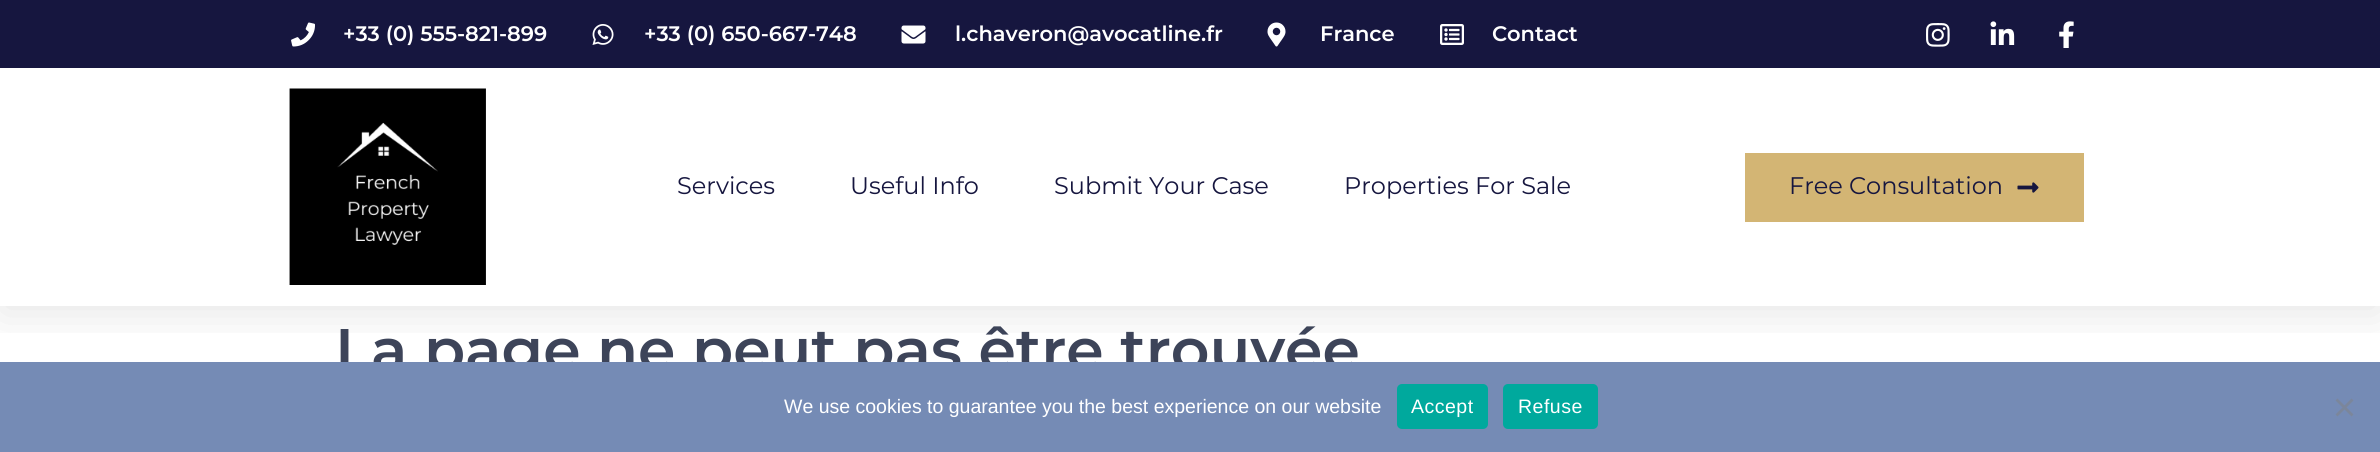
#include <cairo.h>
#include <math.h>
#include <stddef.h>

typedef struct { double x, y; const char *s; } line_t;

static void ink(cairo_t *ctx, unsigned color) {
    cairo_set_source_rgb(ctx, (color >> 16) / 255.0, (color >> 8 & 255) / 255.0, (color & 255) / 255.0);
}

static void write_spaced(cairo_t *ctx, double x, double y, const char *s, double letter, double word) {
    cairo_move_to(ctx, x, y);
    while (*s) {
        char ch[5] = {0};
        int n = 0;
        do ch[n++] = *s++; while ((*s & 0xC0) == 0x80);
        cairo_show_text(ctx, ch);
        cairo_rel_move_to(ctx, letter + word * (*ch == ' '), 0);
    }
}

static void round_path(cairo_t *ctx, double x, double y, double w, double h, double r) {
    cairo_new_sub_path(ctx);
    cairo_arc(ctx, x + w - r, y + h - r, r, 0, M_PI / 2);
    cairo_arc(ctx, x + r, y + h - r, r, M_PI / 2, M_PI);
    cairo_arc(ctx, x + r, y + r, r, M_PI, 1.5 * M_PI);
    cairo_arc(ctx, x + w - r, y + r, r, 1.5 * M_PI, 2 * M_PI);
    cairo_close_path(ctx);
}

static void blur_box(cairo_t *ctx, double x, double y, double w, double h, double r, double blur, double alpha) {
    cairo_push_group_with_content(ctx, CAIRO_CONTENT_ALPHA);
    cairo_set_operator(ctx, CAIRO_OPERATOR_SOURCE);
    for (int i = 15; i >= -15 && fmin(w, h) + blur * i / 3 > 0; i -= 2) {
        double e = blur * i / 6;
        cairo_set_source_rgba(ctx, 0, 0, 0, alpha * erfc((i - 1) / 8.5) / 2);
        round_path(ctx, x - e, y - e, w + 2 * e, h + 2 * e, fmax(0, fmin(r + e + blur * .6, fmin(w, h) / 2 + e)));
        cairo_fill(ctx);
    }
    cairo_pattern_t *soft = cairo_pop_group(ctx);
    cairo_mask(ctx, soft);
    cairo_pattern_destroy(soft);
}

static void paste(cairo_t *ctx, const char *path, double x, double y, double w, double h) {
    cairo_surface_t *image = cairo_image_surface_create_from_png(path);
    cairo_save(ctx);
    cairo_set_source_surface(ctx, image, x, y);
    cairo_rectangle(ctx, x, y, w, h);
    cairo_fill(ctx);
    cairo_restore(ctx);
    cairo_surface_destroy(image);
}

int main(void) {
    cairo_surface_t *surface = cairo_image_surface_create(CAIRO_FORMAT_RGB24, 2380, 452);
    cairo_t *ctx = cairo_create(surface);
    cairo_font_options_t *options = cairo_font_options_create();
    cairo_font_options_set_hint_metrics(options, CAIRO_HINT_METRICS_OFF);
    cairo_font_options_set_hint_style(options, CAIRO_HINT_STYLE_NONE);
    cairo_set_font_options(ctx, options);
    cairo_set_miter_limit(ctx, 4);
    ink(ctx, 0xFFFFFF);
    cairo_paint(ctx);
    cairo_save(ctx);
    cairo_rectangle(ctx, 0, 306, 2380, 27);
    cairo_clip(ctx);
    ink(ctx, 0x000000);
    blur_box(ctx, 0, 8, 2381, 306, 0, 22.5, 0.1);
    cairo_restore(ctx);
    ink(ctx, 0x16163F);
    cairo_rectangle(ctx, 0, 0, 2380, 68);
    cairo_fill(ctx);
    paste(ctx, "media/1.png", 291, 22, 24, 25);
    cairo_select_font_face(ctx, "Montserrat SemiBold", CAIRO_FONT_SLANT_NORMAL, CAIRO_FONT_WEIGHT_NORMAL);
    cairo_set_font_size(ctx, 21);
    ink(ctx, 0xFFFFFF);
    cairo_move_to(ctx, 343, 41);
    cairo_show_text(ctx, "+33 (0) 555-821-899");
    paste(ctx, "media/2.png", 592, 24, 22, 21);
    cairo_move_to(ctx, 644, 41);
    cairo_show_text(ctx, "+33 (0) 650-667-748");
    paste(ctx, "media/3.png", 901, 25, 25, 19);
    cairo_move_to(ctx, 955, 41);
    cairo_show_text(ctx, "l.chaveron@avocatline.fr");
    paste(ctx, "media/4.png", 1267, 22, 19, 25);
    cairo_move_to(ctx, 1320, 41);
    cairo_show_text(ctx, "France");
    paste(ctx, "media/5.png", 1440, 24, 24, 21);
    cairo_move_to(ctx, 1492, 41);
    cairo_show_text(ctx, "Contact");
    paste(ctx, "media/6.png", 1926, 23, 24, 24);
    paste(ctx, "media/7.png", 1990, 21, 25, 24);
    paste(ctx, "media/8.png", 2059, 21, 15, 27);
    paste(ctx, "media/9.png", 289, 88, 197, 197);
    cairo_select_font_face(ctx, "Montserrat", CAIRO_FONT_SLANT_NORMAL, CAIRO_FONT_WEIGHT_NORMAL);
    cairo_set_font_size(ctx, 24);
    ink(ctx, 0x16163F);
    {
        static const line_t items[] = {
            {677, 194, "Services"},
            {850, 194, "Useful Info"},
            {1054, 194, "Submit Your Case"},
            {1344, 194, "Properties For Sale"},
        };
        for (size_t i = 0; i < sizeof items / sizeof *items; i++) {
            cairo_move_to(ctx, items[i].x, items[i].y);
            cairo_show_text(ctx, items[i].s);
        }
    }
    ink(ctx, 0xD3B574);
    cairo_rectangle(ctx, 1745, 153, 339, 69);
    cairo_fill(ctx);
    ink(ctx, 0x16163F);
    cairo_move_to(ctx, 1789, 194);
    cairo_show_text(ctx, "Free Consultation");
    paste(ctx, "media/10.png", 2017, 182, 22, 11);
    cairo_select_font_face(ctx, "Montserrat SemiBold", CAIRO_FONT_SLANT_NORMAL, CAIRO_FONT_WEIGHT_NORMAL);
    cairo_set_font_size(ctx, 60);
    ink(ctx, 0x3D4459);
    cairo_move_to(ctx, 335, 371);
    cairo_show_text(ctx, "La page ne peut pas être trouvée");
    ink(ctx, 0x758BB5);
    cairo_rectangle(ctx, 0, 362, 2380, 90);
    cairo_fill(ctx);
    cairo_select_font_face(ctx, "Liberation Sans", CAIRO_FONT_SLANT_NORMAL, CAIRO_FONT_WEIGHT_NORMAL);
    cairo_set_font_size(ctx, 19.5);
    ink(ctx, 0xFFFFFF);
    cairo_move_to(ctx, 784, 413);
    cairo_show_text(ctx, "We use cookies to guarantee you the best experience on our website");
    ink(ctx, 0x00A99D);
    round_path(ctx, 1397, 384, 91, 45, 5);
    cairo_fill(ctx);
    ink(ctx, 0xFFFFFF);
    write_spaced(ctx, 1411, 413, "Accept", 0.5, 0);
    ink(ctx, 0x00A99D);
    round_path(ctx, 1503, 384, 95, 45, 5);
    cairo_fill(ctx);
    ink(ctx, 0xFFFFFF);
    write_spaced(ctx, 1518, 413, "Refuse", 0.5, 0);
    ink(ctx, 0x7B869B);
    cairo_new_path(ctx);
    cairo_move_to(ctx, 2351.5, 398.5);
    cairo_line_to(ctx, 2353.5, 400.5);
    cairo_line_to(ctx, 2337.5, 416.5);
    cairo_line_to(ctx, 2335.5, 414.5);
    cairo_close_path(ctx);
    cairo_fill(ctx);
    cairo_new_path(ctx);
    cairo_move_to(ctx, 2335.5, 400.5);
    cairo_line_to(ctx, 2337.5, 398.5);
    cairo_line_to(ctx, 2353.5, 414.5);
    cairo_line_to(ctx, 2351.5, 416.5);
    cairo_close_path(ctx);
    cairo_fill(ctx);
    cairo_surface_write_to_png(surface, "image.png");
    cairo_font_options_destroy(options);
    cairo_destroy(ctx);
    cairo_surface_destroy(surface);
    return 0;
}
